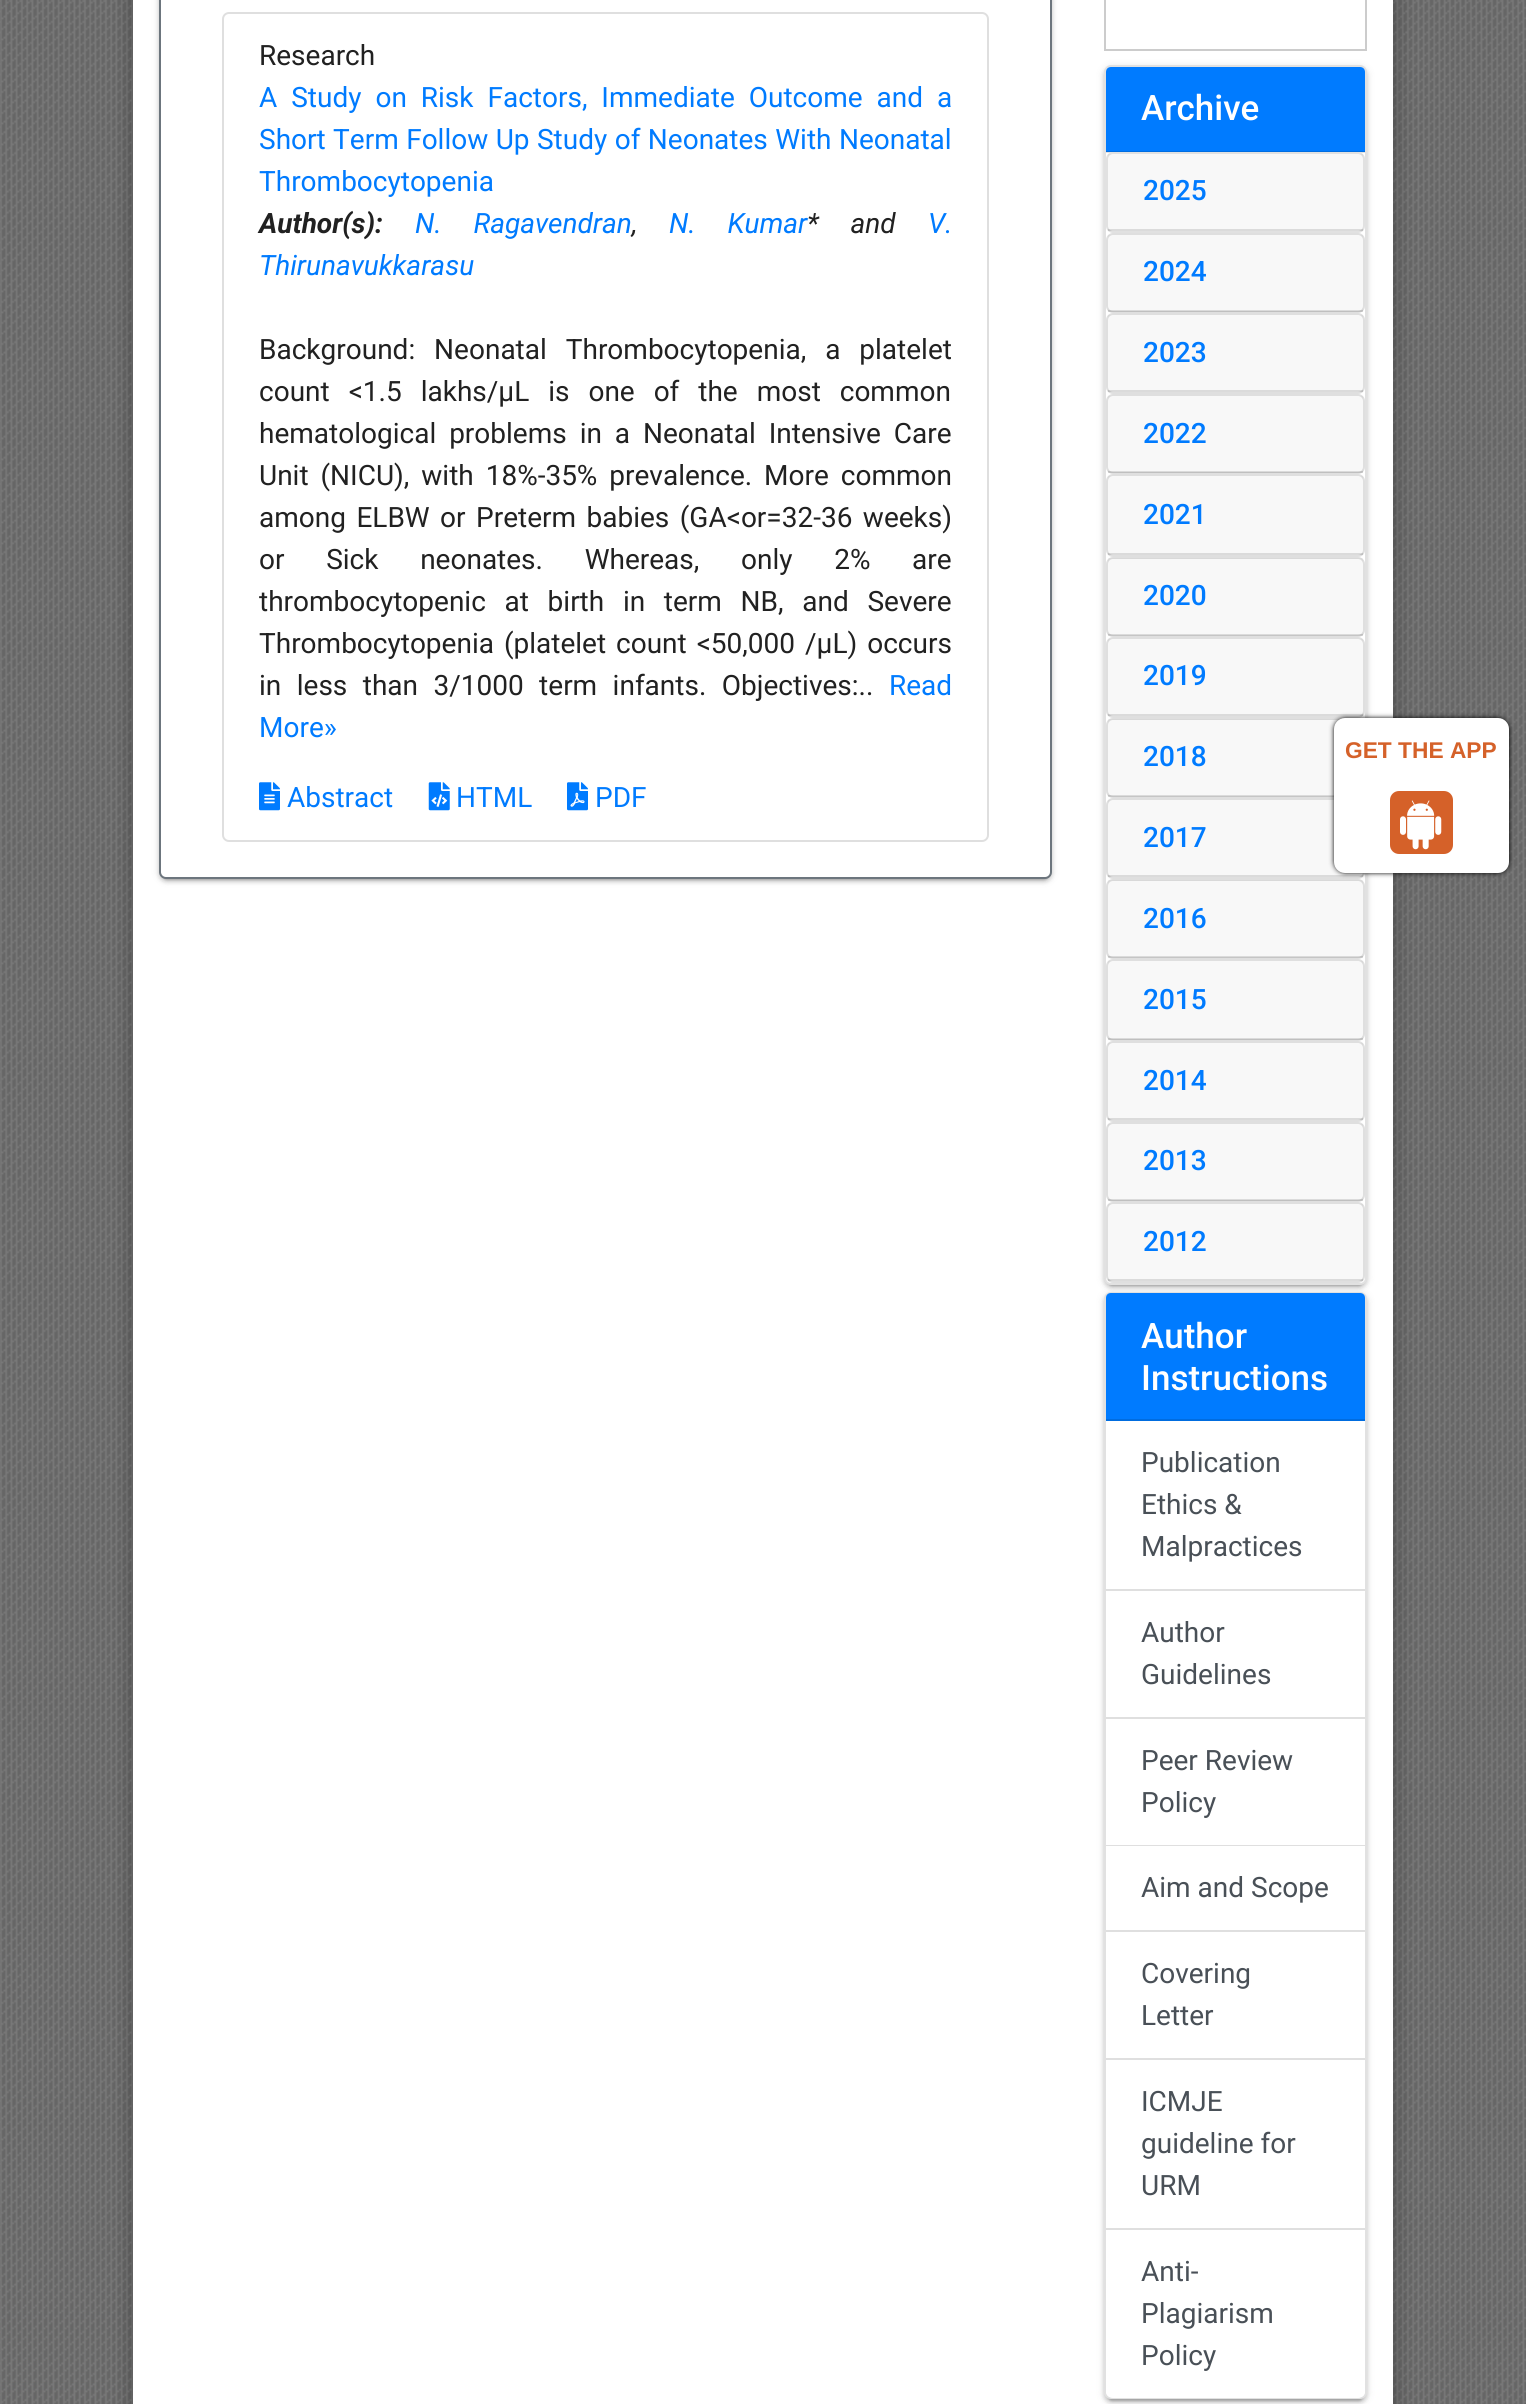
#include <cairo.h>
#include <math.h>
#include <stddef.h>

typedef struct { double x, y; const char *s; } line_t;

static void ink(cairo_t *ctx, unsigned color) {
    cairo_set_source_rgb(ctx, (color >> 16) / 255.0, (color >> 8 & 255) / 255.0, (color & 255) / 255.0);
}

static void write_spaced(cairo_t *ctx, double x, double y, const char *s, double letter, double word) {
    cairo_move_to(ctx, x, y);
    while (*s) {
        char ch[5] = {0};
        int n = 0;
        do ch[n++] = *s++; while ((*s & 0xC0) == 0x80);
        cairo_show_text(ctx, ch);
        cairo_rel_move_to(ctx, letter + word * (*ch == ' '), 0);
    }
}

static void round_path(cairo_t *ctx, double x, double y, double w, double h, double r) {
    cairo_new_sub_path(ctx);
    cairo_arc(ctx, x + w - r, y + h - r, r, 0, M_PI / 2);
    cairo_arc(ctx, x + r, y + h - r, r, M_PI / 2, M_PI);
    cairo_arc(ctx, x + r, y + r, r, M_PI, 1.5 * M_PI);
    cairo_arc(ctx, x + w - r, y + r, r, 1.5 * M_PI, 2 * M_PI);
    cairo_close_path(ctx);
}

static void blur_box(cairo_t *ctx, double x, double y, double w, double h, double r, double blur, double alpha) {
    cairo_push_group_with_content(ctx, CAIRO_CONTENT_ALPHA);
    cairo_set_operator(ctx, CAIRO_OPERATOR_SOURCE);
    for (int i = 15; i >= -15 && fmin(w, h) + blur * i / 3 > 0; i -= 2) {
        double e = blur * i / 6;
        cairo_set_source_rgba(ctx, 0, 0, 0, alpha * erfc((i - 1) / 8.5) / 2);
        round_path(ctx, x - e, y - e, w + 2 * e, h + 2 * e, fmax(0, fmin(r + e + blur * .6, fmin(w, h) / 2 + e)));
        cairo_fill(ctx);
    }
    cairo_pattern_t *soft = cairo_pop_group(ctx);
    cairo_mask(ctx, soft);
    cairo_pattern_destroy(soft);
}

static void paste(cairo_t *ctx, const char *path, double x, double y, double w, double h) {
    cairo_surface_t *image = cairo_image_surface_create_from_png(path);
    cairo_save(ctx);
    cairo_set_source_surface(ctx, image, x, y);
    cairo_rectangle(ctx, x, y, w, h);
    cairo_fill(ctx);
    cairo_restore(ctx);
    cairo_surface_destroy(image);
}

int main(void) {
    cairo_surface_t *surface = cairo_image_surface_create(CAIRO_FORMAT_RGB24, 1526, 2404);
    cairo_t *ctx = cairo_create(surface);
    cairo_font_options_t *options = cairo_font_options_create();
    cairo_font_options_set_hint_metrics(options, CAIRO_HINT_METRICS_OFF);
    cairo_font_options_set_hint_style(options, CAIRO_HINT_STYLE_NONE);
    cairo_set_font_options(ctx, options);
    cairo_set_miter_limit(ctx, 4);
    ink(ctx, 0x666666);
    cairo_paint(ctx);
    paste(ctx, "media/1.png", 0, 0, 1526, 2404);
    ink(ctx, 0x000000);
    blur_box(ctx, 138, -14, 1250, 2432, 0, 4.5, 0.2);
    blur_box(ctx, 130, -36, 1267, 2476, 0, 12, 0.12);
    blur_box(ctx, 131, -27, 1264, 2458, 0, 9, 0.14);
    ink(ctx, 0xFFFFFF);
    cairo_rectangle(ctx, 133, 0, 1260, 2404);
    cairo_fill(ctx);
    ink(ctx, 0x000000);
    blur_box(ctx, 159, -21, 893, 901, 7, 4.5, 0.12);
    blur_box(ctx, 163, -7, 885, 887, 4, 1, 0.2);
    blur_box(ctx, 159, -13, 893, 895, 7, 2, 0.14);
    ink(ctx, 0xFFFFFF);
    round_path(ctx, 160, -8, 891, 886, 6);
    cairo_fill_preserve(ctx);
    ink(ctx, 0x6C757D);
    cairo_stroke(ctx);
    round_path(ctx, 223, 13, 765, 828, 6);
    ink(ctx, 0xDFDFDF);
    cairo_stroke(ctx);
    cairo_select_font_face(ctx, "Roboto", CAIRO_FONT_SLANT_NORMAL, CAIRO_FONT_WEIGHT_NORMAL);
    cairo_set_font_size(ctx, 28);
    ink(ctx, 0x212121);
    cairo_move_to(ctx, 259, 65);
    cairo_show_text(ctx, "Research");
    ink(ctx, 0x007BFF);
    write_spaced(ctx, 259, 107, "A Study on Risk Factors, Immediate Outcome and a", 0, 7);
    write_spaced(ctx, 259, 149, "Short Term Follow Up Study of Neonates With Neonatal", 0, 0.5);
    cairo_move_to(ctx, 259, 191);
    cairo_show_text(ctx, "Thrombocytopenia");
    cairo_select_font_face(ctx, "Roboto", CAIRO_FONT_SLANT_ITALIC, CAIRO_FONT_WEIGHT_BOLD);
    ink(ctx, 0x212121);
    cairo_move_to(ctx, 259, 233);
    cairo_show_text(ctx, "Author(s):");
    cairo_select_font_face(ctx, "Roboto", CAIRO_FONT_SLANT_ITALIC, CAIRO_FONT_WEIGHT_NORMAL);
    ink(ctx, 0x007BFF);
    write_spaced(ctx, 415, 233, "N. Ragavendran", 0, 25);
    ink(ctx, 0x212121);
    cairo_move_to(ctx, 632, 233);
    cairo_show_text(ctx, ",");
    ink(ctx, 0x007BFF);
    write_spaced(ctx, 669, 233, "N. Kumar", 0, 25);
    ink(ctx, 0x212121);
    write_spaced(ctx, 807, 233, "* and", 0, 25);
    ink(ctx, 0x007BFF);
    cairo_move_to(ctx, 928, 233);
    cairo_show_text(ctx, "V.");
    cairo_move_to(ctx, 259, 275);
    cairo_show_text(ctx, "Thirunavukkarasu");
    cairo_select_font_face(ctx, "Roboto", CAIRO_FONT_SLANT_NORMAL, CAIRO_FONT_WEIGHT_NORMAL);
    ink(ctx, 0x212121);
    write_spaced(ctx, 259, 359, "Background: Neonatal Thrombocytopenia, a platelet", 0, 12);
    write_spaced(ctx, 259, 401, "count <1.5 lakhs/µL is one of the most common", 0, 12);
    write_spaced(ctx, 259, 443, "hematological problems in a Neonatal Intensive Care", 0, 6);
    write_spaced(ctx, 259, 485, "Unit (NICU), with 18%-35% prevalence. More common", 0, 5);
    write_spaced(ctx, 259, 527, "among ELBW or Preterm babies (GA<or=32-36 weeks)", 0, 3.5);
    write_spaced(ctx, 259, 569, "or Sick neonates. Whereas, only 2% are", 0, 34.75);
    write_spaced(ctx, 259, 611, "thrombocytopenic at birth in term NB, and Severe", 0, 11.75);
    write_spaced(ctx, 259, 653, "Thrombocytopenia (platelet count <50,000 /µL) occurs", 0, 3);
    write_spaced(ctx, 259, 695, "in less than 3/1000 term infants. Objectives:..", 0, 8.5);
    ink(ctx, 0x007BFF);
    cairo_move_to(ctx, 889, 695);
    cairo_show_text(ctx, "Read");
    cairo_move_to(ctx, 259, 737);
    cairo_show_text(ctx, "More»");
    paste(ctx, "media/2.png", 259, 782, 21, 29);
    cairo_move_to(ctx, 287, 807);
    cairo_show_text(ctx, "Abstract");
    paste(ctx, "media/3.png", 428, 782, 22, 29);
    cairo_move_to(ctx, 456, 807);
    cairo_show_text(ctx, "HTML");
    paste(ctx, "media/4.png", 567, 782, 21, 29);
    cairo_move_to(ctx, 595, 807);
    cairo_show_text(ctx, "PDF");
    cairo_rectangle(ctx, 1105, -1, 261, 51);
    ink(ctx, 0xCCCCCC);
    cairo_stroke(ctx);
    ink(ctx, 0x000000);
    blur_box(ctx, 1104, 67, 263, 1219, 7, 4.5, 0.12);
    blur_box(ctx, 1108, 74, 255, 1212, 4, 1, 0.2);
    blur_box(ctx, 1104, 68, 263, 1220, 7, 2, 0.14);
    ink(ctx, 0xFFFFFF);
    round_path(ctx, 1104, 65, 263, 1220, 7);
    cairo_fill(ctx);
    round_path(ctx, 1105, 66, 261, 1218, 6);
    cairo_set_source_rgba(ctx, 0, 0, 0, 0.12);
    cairo_stroke(ctx);
    ink(ctx, 0x007BFF);
    cairo_new_path(ctx);
    cairo_move_to(ctx, 1111, 67);
    cairo_line_to(ctx, 1360, 67);
    cairo_curve_to(ctx, 1363, 67, 1365, 69, 1365, 72);
    cairo_line_to(ctx, 1365, 152);
    cairo_line_to(ctx, 1106, 152);
    cairo_line_to(ctx, 1106, 72);
    cairo_curve_to(ctx, 1106, 69, 1108, 67, 1111, 67);
    cairo_close_path(ctx);
    cairo_fill(ctx);
    cairo_set_source_rgba(ctx, 0, 0, 0, 0.12);
    cairo_rectangle(ctx, 1106, 151, 259, 2);
    cairo_fill(ctx);
    cairo_select_font_face(ctx, "Roboto Medium", CAIRO_FONT_SLANT_NORMAL, CAIRO_FONT_WEIGHT_NORMAL);
    cairo_set_font_size(ctx, 35);
    ink(ctx, 0xFFFFFF);
    cairo_move_to(ctx, 1141, 120);
    cairo_show_text(ctx, "Archive");
    round_path(ctx, 1106, 152, 259, 81, 7);
    cairo_fill(ctx);
    round_path(ctx, 1107, 153, 257, 79, 6);
    cairo_set_source_rgba(ctx, 0, 0, 0, 0.12);
    cairo_stroke(ctx);
    cairo_set_source_rgba(ctx, 0, 0, 0, 0.03);
    cairo_rectangle(ctx, 1108, 154, 255, 77);
    cairo_fill(ctx);
    cairo_set_source_rgba(ctx, 0, 0, 0, 0.12);
    cairo_rectangle(ctx, 1108, 229, 255, 2);
    cairo_fill(ctx);
    cairo_set_font_size(ctx, 28);
    ink(ctx, 0x007BFF);
    cairo_move_to(ctx, 1143, 200);
    cairo_show_text(ctx, "2025");
    round_path(ctx, 1107, 234, 257, 78, 6);
    ink(ctx, 0xDFDFDF);
    cairo_stroke(ctx);
    cairo_set_source_rgba(ctx, 0, 0, 0, 0.03);
    cairo_rectangle(ctx, 1108, 235, 255, 77);
    cairo_fill(ctx);
    cairo_set_source_rgba(ctx, 0, 0, 0, 0.12);
    cairo_rectangle(ctx, 1108, 310, 255, 2);
    cairo_fill(ctx);
    ink(ctx, 0x007BFF);
    cairo_move_to(ctx, 1143, 281);
    cairo_show_text(ctx, "2024");
    round_path(ctx, 1107, 314, 257, 79, 6);
    ink(ctx, 0xDFDFDF);
    cairo_stroke(ctx);
    cairo_set_source_rgba(ctx, 0, 0, 0, 0.03);
    cairo_rectangle(ctx, 1108, 315, 255, 77);
    cairo_fill(ctx);
    cairo_set_source_rgba(ctx, 0, 0, 0, 0.12);
    cairo_rectangle(ctx, 1108, 390, 255, 2);
    cairo_fill(ctx);
    ink(ctx, 0x007BFF);
    cairo_move_to(ctx, 1143, 362);
    cairo_show_text(ctx, "2023");
    round_path(ctx, 1107, 395, 257, 78, 6);
    ink(ctx, 0xDFDFDF);
    cairo_stroke(ctx);
    cairo_set_source_rgba(ctx, 0, 0, 0, 0.03);
    cairo_rectangle(ctx, 1108, 396, 255, 77);
    cairo_fill(ctx);
    cairo_set_source_rgba(ctx, 0, 0, 0, 0.12);
    cairo_rectangle(ctx, 1108, 471, 255, 2);
    cairo_fill(ctx);
    ink(ctx, 0x007BFF);
    cairo_move_to(ctx, 1143, 443);
    cairo_show_text(ctx, "2022");
    round_path(ctx, 1107, 475, 257, 81, 6);
    ink(ctx, 0xDFDFDF);
    cairo_stroke(ctx);
    cairo_set_source_rgba(ctx, 0, 0, 0, 0.03);
    cairo_rectangle(ctx, 1108, 476, 255, 79);
    cairo_fill(ctx);
    cairo_set_source_rgba(ctx, 0, 0, 0, 0.12);
    cairo_rectangle(ctx, 1108, 553, 255, 2);
    cairo_fill(ctx);
    ink(ctx, 0x007BFF);
    cairo_move_to(ctx, 1143, 524);
    cairo_show_text(ctx, "2021");
    round_path(ctx, 1107, 558, 257, 78, 6);
    ink(ctx, 0xDFDFDF);
    cairo_stroke(ctx);
    cairo_set_source_rgba(ctx, 0, 0, 0, 0.03);
    cairo_rectangle(ctx, 1108, 558, 255, 77);
    cairo_fill(ctx);
    cairo_set_source_rgba(ctx, 0, 0, 0, 0.12);
    cairo_rectangle(ctx, 1108, 634, 255, 2);
    cairo_fill(ctx);
    ink(ctx, 0x007BFF);
    cairo_move_to(ctx, 1143, 605);
    cairo_show_text(ctx, "2020");
    round_path(ctx, 1107, 638, 257, 79, 6);
    ink(ctx, 0xDFDFDF);
    cairo_stroke(ctx);
    cairo_set_source_rgba(ctx, 0, 0, 0, 0.03);
    cairo_rectangle(ctx, 1108, 639, 255, 77);
    cairo_fill(ctx);
    cairo_set_source_rgba(ctx, 0, 0, 0, 0.12);
    cairo_rectangle(ctx, 1108, 714, 255, 2);
    cairo_fill(ctx);
    ink(ctx, 0x007BFF);
    cairo_move_to(ctx, 1143, 685);
    cairo_show_text(ctx, "2019");
    round_path(ctx, 1107, 719, 257, 78, 6);
    ink(ctx, 0xDFDFDF);
    cairo_stroke(ctx);
    cairo_set_source_rgba(ctx, 0, 0, 0, 0.03);
    cairo_rectangle(ctx, 1108, 719, 233, 77);
    cairo_fill(ctx);
    cairo_set_source_rgba(ctx, 0, 0, 0, 0.12);
    cairo_rectangle(ctx, 1108, 795, 226, 2);
    cairo_fill(ctx);
    ink(ctx, 0x007BFF);
    cairo_move_to(ctx, 1143, 766);
    cairo_show_text(ctx, "2018");
    round_path(ctx, 1107, 799, 257, 79, 6);
    ink(ctx, 0xDFDFDF);
    cairo_stroke(ctx);
    cairo_set_source_rgba(ctx, 0, 0, 0, 0.03);
    cairo_rectangle(ctx, 1108, 800, 255, 77);
    cairo_fill(ctx);
    cairo_set_source_rgba(ctx, 0, 0, 0, 0.12);
    cairo_rectangle(ctx, 1108, 875, 255, 2);
    cairo_fill(ctx);
    ink(ctx, 0x007BFF);
    cairo_move_to(ctx, 1143, 847);
    cairo_show_text(ctx, "2017");
    round_path(ctx, 1107, 880, 257, 78, 6);
    ink(ctx, 0xDFDFDF);
    cairo_stroke(ctx);
    cairo_set_source_rgba(ctx, 0, 0, 0, 0.03);
    cairo_rectangle(ctx, 1108, 880, 255, 77);
    cairo_fill(ctx);
    cairo_set_source_rgba(ctx, 0, 0, 0, 0.12);
    cairo_rectangle(ctx, 1108, 956, 255, 2);
    cairo_fill(ctx);
    ink(ctx, 0x007BFF);
    cairo_move_to(ctx, 1143, 928);
    cairo_show_text(ctx, "2016");
    round_path(ctx, 1107, 960, 257, 80, 6);
    ink(ctx, 0xDFDFDF);
    cairo_stroke(ctx);
    cairo_set_source_rgba(ctx, 0, 0, 0, 0.03);
    cairo_rectangle(ctx, 1108, 961, 255, 79);
    cairo_fill(ctx);
    cairo_set_source_rgba(ctx, 0, 0, 0, 0.12);
    cairo_rectangle(ctx, 1108, 1038, 255, 2);
    cairo_fill(ctx);
    ink(ctx, 0x007BFF);
    cairo_move_to(ctx, 1143, 1009);
    cairo_show_text(ctx, "2015");
    round_path(ctx, 1107, 1042, 257, 79, 6);
    ink(ctx, 0xDFDFDF);
    cairo_stroke(ctx);
    cairo_set_source_rgba(ctx, 0, 0, 0, 0.03);
    cairo_rectangle(ctx, 1108, 1043, 255, 77);
    cairo_fill(ctx);
    cairo_set_source_rgba(ctx, 0, 0, 0, 0.12);
    cairo_rectangle(ctx, 1108, 1118, 255, 2);
    cairo_fill(ctx);
    ink(ctx, 0x007BFF);
    cairo_move_to(ctx, 1143, 1090);
    cairo_show_text(ctx, "2014");
    round_path(ctx, 1107, 1123, 257, 78, 6);
    ink(ctx, 0xDFDFDF);
    cairo_stroke(ctx);
    cairo_set_source_rgba(ctx, 0, 0, 0, 0.03);
    cairo_rectangle(ctx, 1108, 1124, 255, 77);
    cairo_fill(ctx);
    cairo_set_source_rgba(ctx, 0, 0, 0, 0.12);
    cairo_rectangle(ctx, 1108, 1199, 255, 2);
    cairo_fill(ctx);
    ink(ctx, 0x007BFF);
    cairo_move_to(ctx, 1143, 1170);
    cairo_show_text(ctx, "2013");
    round_path(ctx, 1107, 1203, 257, 79, 6);
    ink(ctx, 0xDFDFDF);
    cairo_stroke(ctx);
    cairo_set_source_rgba(ctx, 0, 0, 0, 0.03);
    cairo_rectangle(ctx, 1108, 1204, 255, 77);
    cairo_fill(ctx);
    cairo_set_source_rgba(ctx, 0, 0, 0, 0.12);
    cairo_rectangle(ctx, 1108, 1279, 255, 2);
    cairo_fill(ctx);
    ink(ctx, 0x007BFF);
    cairo_move_to(ctx, 1143, 1251);
    cairo_show_text(ctx, "2012");
    ink(ctx, 0x000000);
    blur_box(ctx, 1104, 1293, 263, 1108, 7, 4.5, 0.12);
    blur_box(ctx, 1108, 1300, 255, 1101, 4, 1, 0.2);
    blur_box(ctx, 1104, 1295, 263, 1108, 7, 2, 0.14);
    ink(ctx, 0xFFFFFF);
    round_path(ctx, 1104, 1292, 263, 1107, 7);
    cairo_fill(ctx);
    round_path(ctx, 1105, 1293, 261, 1105, 6);
    cairo_set_source_rgba(ctx, 0, 0, 0, 0.12);
    cairo_stroke(ctx);
    ink(ctx, 0x007BFF);
    cairo_new_path(ctx);
    cairo_move_to(ctx, 1111, 1293);
    cairo_line_to(ctx, 1360, 1293);
    cairo_curve_to(ctx, 1363, 1293, 1365, 1295, 1365, 1298);
    cairo_line_to(ctx, 1365, 1421);
    cairo_line_to(ctx, 1106, 1421);
    cairo_line_to(ctx, 1106, 1298);
    cairo_curve_to(ctx, 1106, 1295, 1108, 1293, 1111, 1293);
    cairo_close_path(ctx);
    cairo_fill(ctx);
    ink(ctx, 0x006CDF);
    cairo_rectangle(ctx, 1106, 1419, 259, 2);
    cairo_fill(ctx);
    cairo_set_font_size(ctx, 35);
    ink(ctx, 0xFFFFFF);
    cairo_move_to(ctx, 1141, 1348);
    cairo_show_text(ctx, "Author");
    cairo_move_to(ctx, 1141, 1390);
    cairo_show_text(ctx, "Instructions");
    ink(ctx, 0xDFDFDF);
    cairo_rectangle(ctx, 1106, 1589, 259, 2);
    cairo_fill(ctx);
    cairo_select_font_face(ctx, "Roboto", CAIRO_FONT_SLANT_NORMAL, CAIRO_FONT_WEIGHT_NORMAL);
    cairo_set_font_size(ctx, 28);
    ink(ctx, 0x495057);
    {
        static const line_t items[] = {
            {1141, 1472, "Publication"},
            {1141, 1514, "Ethics &"},
            {1141, 1556, "Malpractices"},
        };
        for (size_t i = 0; i < sizeof items / sizeof *items; i++) {
            cairo_move_to(ctx, items[i].x, items[i].y);
            cairo_show_text(ctx, items[i].s);
        }
    }
    ink(ctx, 0xDFDFDF);
    cairo_rectangle(ctx, 1106, 1717, 259, 2);
    cairo_fill(ctx);
    ink(ctx, 0x495057);
    cairo_move_to(ctx, 1141, 1642);
    cairo_show_text(ctx, "Author");
    cairo_move_to(ctx, 1141, 1684);
    cairo_show_text(ctx, "Guidelines");
    ink(ctx, 0xDFDFDF);
    cairo_rectangle(ctx, 1106, 1845, 259, 1);
    cairo_fill(ctx);
    ink(ctx, 0x495057);
    cairo_move_to(ctx, 1141, 1770);
    cairo_show_text(ctx, "Peer Review");
    cairo_move_to(ctx, 1141, 1812);
    cairo_show_text(ctx, "Policy");
    ink(ctx, 0xDFDFDF);
    cairo_rectangle(ctx, 1106, 1930, 259, 2);
    cairo_fill(ctx);
    ink(ctx, 0x495057);
    cairo_move_to(ctx, 1141, 1897);
    cairo_show_text(ctx, "Aim and Scope");
    ink(ctx, 0xDFDFDF);
    cairo_rectangle(ctx, 1106, 2058, 259, 2);
    cairo_fill(ctx);
    ink(ctx, 0x495057);
    cairo_move_to(ctx, 1141, 1983);
    cairo_show_text(ctx, "Covering");
    cairo_move_to(ctx, 1141, 2025);
    cairo_show_text(ctx, "Letter");
    ink(ctx, 0xDFDFDF);
    cairo_rectangle(ctx, 1106, 2228, 259, 2);
    cairo_fill(ctx);
    ink(ctx, 0x495057);
    {
        static const line_t items[] = {
            {1141, 2111, "ICMJE"},
            {1141, 2153, "guideline for"},
            {1141, 2195, "URM"},
        };
        for (size_t i = 0; i < sizeof items / sizeof *items; i++) {
            cairo_move_to(ctx, items[i].x, items[i].y);
            cairo_show_text(ctx, items[i].s);
        }
    }
    ink(ctx, 0xFFFFFF);
    cairo_new_path(ctx);
    cairo_move_to(ctx, 1106, 2230);
    cairo_line_to(ctx, 1365, 2230);
    cairo_line_to(ctx, 1365, 2391);
    cairo_curve_to(ctx, 1365, 2395, 1362, 2398, 1358, 2398);
    cairo_line_to(ctx, 1113, 2398);
    cairo_curve_to(ctx, 1109, 2398, 1106, 2395, 1106, 2391);
    cairo_close_path(ctx);
    cairo_fill(ctx);
    ink(ctx, 0x495057);
    {
        static const line_t items[] = {
            {1141, 2281, "Anti-"},
            {1141, 2323, "Plagiarism"},
            {1141, 2365, "Policy"},
        };
        for (size_t i = 0; i < sizeof items / sizeof *items; i++) {
            cairo_move_to(ctx, items[i].x, items[i].y);
            cairo_show_text(ctx, items[i].s);
        }
    }
    ink(ctx, 0x000000);
    blur_box(ctx, 1334, 718, 175, 155, 11, 2.5, 1);
    ink(ctx, 0xFFFFFF);
    round_path(ctx, 1335, 719, 173, 153, 10);
    cairo_fill_preserve(ctx);
    cairo_stroke(ctx);
    cairo_select_font_face(ctx, "Liberation Sans", CAIRO_FONT_SLANT_NORMAL, CAIRO_FONT_WEIGHT_BOLD);
    cairo_set_font_size(ctx, 22.75);
    ink(ctx, 0xD56129);
    cairo_move_to(ctx, 1345, 758);
    cairo_show_text(ctx, "GET THE APP");
    round_path(ctx, 1390, 791, 63, 63, 9);
    cairo_fill(ctx);
    paste(ctx, "media/5.png", 1400, 800, 42, 50);
    cairo_surface_write_to_png(surface, "image.png");
    cairo_font_options_destroy(options);
    cairo_destroy(ctx);
    cairo_surface_destroy(surface);
    return 0;
}
